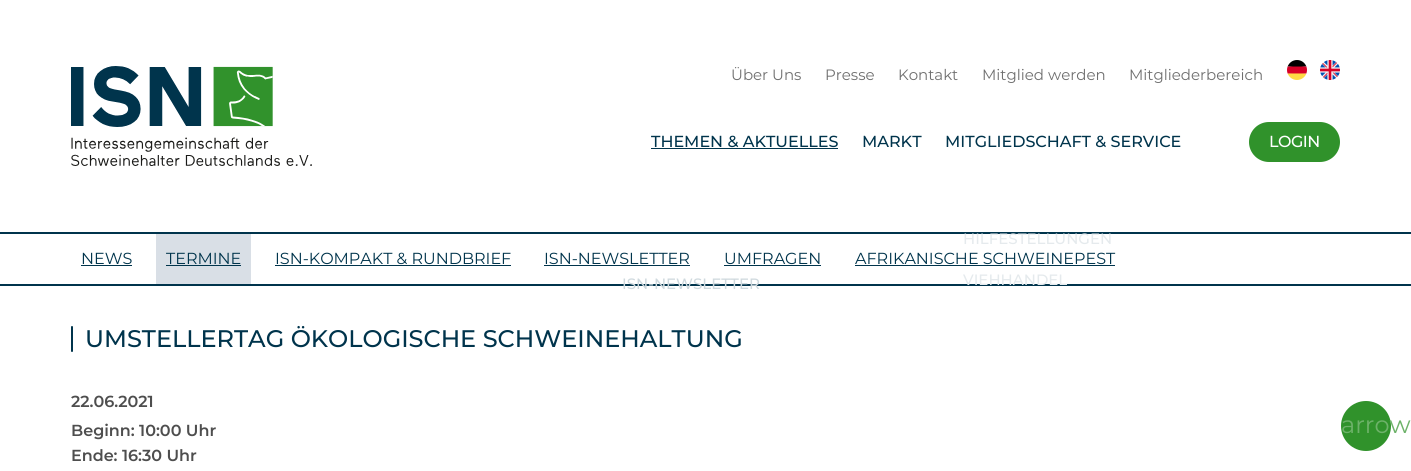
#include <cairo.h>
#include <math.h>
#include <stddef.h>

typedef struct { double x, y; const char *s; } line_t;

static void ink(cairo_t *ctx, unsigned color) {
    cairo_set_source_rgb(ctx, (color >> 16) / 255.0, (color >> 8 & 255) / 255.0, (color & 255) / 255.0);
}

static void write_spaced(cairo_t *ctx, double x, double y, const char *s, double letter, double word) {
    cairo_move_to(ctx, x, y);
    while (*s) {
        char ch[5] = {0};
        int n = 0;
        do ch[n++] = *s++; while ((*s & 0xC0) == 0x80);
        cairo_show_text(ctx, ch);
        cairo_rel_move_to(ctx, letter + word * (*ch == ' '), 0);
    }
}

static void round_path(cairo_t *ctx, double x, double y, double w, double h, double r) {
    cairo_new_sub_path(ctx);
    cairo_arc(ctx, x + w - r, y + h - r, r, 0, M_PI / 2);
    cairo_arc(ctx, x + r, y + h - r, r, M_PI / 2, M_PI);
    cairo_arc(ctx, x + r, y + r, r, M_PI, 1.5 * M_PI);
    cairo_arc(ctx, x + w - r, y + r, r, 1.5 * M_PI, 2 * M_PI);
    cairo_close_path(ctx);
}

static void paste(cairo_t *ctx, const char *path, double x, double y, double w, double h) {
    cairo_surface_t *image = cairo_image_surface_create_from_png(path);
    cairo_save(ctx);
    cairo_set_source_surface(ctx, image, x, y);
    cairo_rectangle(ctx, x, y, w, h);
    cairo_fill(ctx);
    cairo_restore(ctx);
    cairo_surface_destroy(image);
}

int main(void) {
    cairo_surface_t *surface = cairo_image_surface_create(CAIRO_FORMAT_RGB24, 1411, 471);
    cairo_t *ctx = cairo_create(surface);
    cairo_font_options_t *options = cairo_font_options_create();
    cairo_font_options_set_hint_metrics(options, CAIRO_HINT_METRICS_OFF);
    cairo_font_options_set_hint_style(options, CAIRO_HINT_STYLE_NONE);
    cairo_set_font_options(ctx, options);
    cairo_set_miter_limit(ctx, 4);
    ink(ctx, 0xFFFFFF);
    cairo_paint(ctx);
    paste(ctx, "media/1.png", 71, 66, 241, 100);
    cairo_select_font_face(ctx, "Montserrat", CAIRO_FONT_SLANT_NORMAL, CAIRO_FONT_WEIGHT_NORMAL);
    cairo_set_font_size(ctx, 15);
    ink(ctx, 0x6F6F6F);
    {
        static const line_t items[] = {
            {731, 80, "Über Uns"},
            {825, 80, "Presse"},
            {898, 80, "Kontakt"},
            {982, 80, "Mitglied werden"},
            {1129, 80, "Mitgliederbereich"},
        };
        for (size_t i = 0; i < sizeof items / sizeof *items; i++) {
            cairo_move_to(ctx, items[i].x, items[i].y);
            cairo_show_text(ctx, items[i].s);
        }
    }
    paste(ctx, "media/2.png", 1287, 60, 20, 20);
    paste(ctx, "media/3.png", 1320, 60, 20, 20);
    cairo_select_font_face(ctx, "Montserrat Medium", CAIRO_FONT_SLANT_NORMAL, CAIRO_FONT_WEIGHT_NORMAL);
    cairo_set_font_size(ctx, 16);
    ink(ctx, 0x00344C);
    cairo_move_to(ctx, 651, 147);
    cairo_show_text(ctx, "THEMEN & AKTUELLES");
    cairo_rectangle(ctx, 651, 148, 187, 1);
    cairo_fill(ctx);
    cairo_rectangle(ctx, 0, 284, 1411, 2);
    cairo_fill(ctx);
    cairo_set_font_size(ctx, 15);
    ink(ctx, 0xCFD9DE);
    cairo_move_to(ctx, 622, 289);
    cairo_show_text(ctx, "ISN-NEWSLETTER");
    cairo_set_font_size(ctx, 16);
    ink(ctx, 0x00344C);
    cairo_move_to(ctx, 862, 147);
    cairo_show_text(ctx, "MARKT");
    cairo_move_to(ctx, 945, 147);
    cairo_show_text(ctx, "MITGLIEDSCHAFT & SERVICE");
    cairo_rectangle(ctx, 0, 232, 1411, 2);
    cairo_fill(ctx);
    cairo_set_font_size(ctx, 15);
    ink(ctx, 0xE5EAED);
    cairo_move_to(ctx, 963, 244);
    cairo_show_text(ctx, "HILFESTELLUNGEN");
    cairo_move_to(ctx, 963, 285);
    cairo_show_text(ctx, "VIEHHANDEL");
    ink(ctx, 0x30922B);
    round_path(ctx, 1249, 122, 91, 40, 20);
    cairo_fill(ctx);
    cairo_set_font_size(ctx, 16);
    ink(ctx, 0xFFFFFF);
    write_spaced(ctx, 1269, 147, "LOGIN", -0.5, 0);
    cairo_select_font_face(ctx, "Montserrat", CAIRO_FONT_SLANT_NORMAL, CAIRO_FONT_WEIGHT_NORMAL);
    ink(ctx, 0x00344C);
    cairo_move_to(ctx, 81, 264);
    cairo_show_text(ctx, "NEWS");
    cairo_rectangle(ctx, 81, 265, 51, 1);
    cairo_fill(ctx);
    ink(ctx, 0xD9DFE6);
    cairo_rectangle(ctx, 156, 234, 95, 50);
    cairo_fill(ctx);
    ink(ctx, 0x00344C);
    cairo_move_to(ctx, 166, 264);
    cairo_show_text(ctx, "TERMINE");
    cairo_rectangle(ctx, 166, 265, 75, 1);
    cairo_fill(ctx);
    cairo_move_to(ctx, 275, 264);
    cairo_show_text(ctx, "ISN-KOMPAKT & RUNDBRIEF");
    cairo_rectangle(ctx, 275, 265, 236, 1);
    cairo_fill(ctx);
    cairo_move_to(ctx, 544, 264);
    cairo_show_text(ctx, "ISN-NEWSLETTER");
    cairo_rectangle(ctx, 544, 265, 146, 1);
    cairo_fill(ctx);
    cairo_move_to(ctx, 724, 264);
    cairo_show_text(ctx, "UMFRAGEN");
    cairo_rectangle(ctx, 724, 265, 97, 1);
    cairo_fill(ctx);
    cairo_move_to(ctx, 855, 264);
    cairo_show_text(ctx, "AFRIKANISCHE SCHWEINEPEST");
    cairo_rectangle(ctx, 855, 265, 260, 1);
    cairo_fill(ctx);
    round_path(ctx, 71, 326, 2, 26, 1);
    cairo_fill(ctx);
    cairo_select_font_face(ctx, "Montserrat Medium", CAIRO_FONT_SLANT_NORMAL, CAIRO_FONT_WEIGHT_NORMAL);
    cairo_set_font_size(ctx, 24);
    cairo_move_to(ctx, 85, 347);
    cairo_show_text(ctx, "UMSTELLERTAG ÖKOLOGISCHE SCHWEINEHALTUNG");
    cairo_select_font_face(ctx, "Montserrat SemiBold", CAIRO_FONT_SLANT_NORMAL, CAIRO_FONT_WEIGHT_NORMAL);
    cairo_set_font_size(ctx, 16);
    ink(ctx, 0x4E4E4E);
    {
        static const line_t items[] = {
            {71, 407, "22.06.2021"},
            {71, 436, "Beginn: 10:00 Uhr"},
            {71, 461, "Ende: 16:30 Uhr"},
        };
        for (size_t i = 0; i < sizeof items / sizeof *items; i++) {
            cairo_move_to(ctx, items[i].x, items[i].y);
            cairo_show_text(ctx, items[i].s);
        }
    }
    ink(ctx, 0x30922B);
    cairo_new_path(ctx);
    cairo_arc(ctx, 1366, 426, 25, 0, 2 * M_PI);
    cairo_fill(ctx);
    cairo_select_font_face(ctx, "Montserrat", CAIRO_FONT_SLANT_NORMAL, CAIRO_FONT_WEIGHT_NORMAL);
    cairo_set_font_size(ctx, 24);
    ink(ctx, 0x6DB269);
    cairo_move_to(ctx, 1341, 433);
    cairo_show_text(ctx, "arrow");
    cairo_surface_write_to_png(surface, "image.png");
    cairo_font_options_destroy(options);
    cairo_destroy(ctx);
    cairo_surface_destroy(surface);
    return 0;
}
